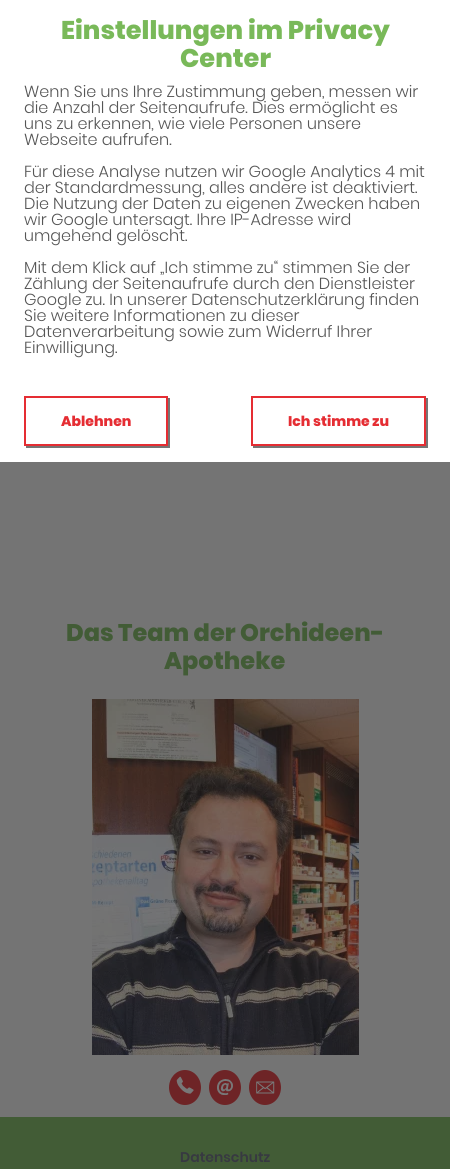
#include <cairo.h>
#include <math.h>
#include <stddef.h>

typedef struct { double x, y; const char *s; } line_t;

static void ink(cairo_t *ctx, unsigned color) {
    cairo_set_source_rgb(ctx, (color >> 16) / 255.0, (color >> 8 & 255) / 255.0, (color & 255) / 255.0);
}

static void paste(cairo_t *ctx, const char *path, double x, double y, double w, double h) {
    cairo_surface_t *image = cairo_image_surface_create_from_png(path);
    cairo_save(ctx);
    cairo_set_source_surface(ctx, image, x, y);
    cairo_rectangle(ctx, x, y, w, h);
    cairo_fill(ctx);
    cairo_restore(ctx);
    cairo_surface_destroy(image);
}

int main(void) {
    cairo_surface_t *surface = cairo_image_surface_create(CAIRO_FORMAT_RGB24, 450, 1169);
    cairo_t *ctx = cairo_create(surface);
    cairo_font_options_t *options = cairo_font_options_create();
    cairo_font_options_set_hint_metrics(options, CAIRO_HINT_METRICS_OFF);
    cairo_font_options_set_hint_style(options, CAIRO_HINT_STYLE_NONE);
    cairo_set_font_options(ctx, options);
    cairo_set_miter_limit(ctx, 4);
    ink(ctx, 0x747474);
    cairo_paint(ctx);
    ink(ctx, 0xFFFFFF);
    cairo_rectangle(ctx, 0, 0, 450, 462);
    cairo_fill(ctx);
    cairo_select_font_face(ctx, "Poppins ExtraBold", CAIRO_FONT_SLANT_NORMAL, CAIRO_FONT_WEIGHT_NORMAL);
    cairo_set_font_size(ctx, 25.6);
    ink(ctx, 0x79B959);
    cairo_move_to(ctx, 61, 39);
    cairo_show_text(ctx, "Einstellungen im Privacy");
    cairo_move_to(ctx, 180, 67);
    cairo_show_text(ctx, "Center");
    cairo_select_font_face(ctx, "Poppins Light", CAIRO_FONT_SLANT_NORMAL, CAIRO_FONT_WEIGHT_NORMAL);
    cairo_set_font_size(ctx, 16);
    ink(ctx, 0x555555);
    {
        static const line_t items[] = {
            {24, 97, "Wenn Sie uns Ihre Zustimmung geben, messen wir"},
            {24, 113, "die Anzahl der Seitenaufrufe. Dies ermöglicht es"},
            {24, 129, "uns zu erkennen, wie viele Personen unsere"},
            {24, 145, "Webseite aufrufen."},
            {24, 177, "Für diese Analyse nutzen wir Google Analytics 4 mit"},
            {24, 193, "der Standardmessung, alles andere ist deaktiviert."},
            {24, 209, "Die Nutzung der Daten zu eigenen Zwecken haben"},
            {24, 225, "wir Google untersagt. Ihre IP-Adresse wird"},
            {24, 241, "umgehend gelöscht."},
            {24, 273, "Mit dem Klick auf „Ich stimme zu“ stimmen Sie der"},
            {24, 289, "Zählung der Seitenaufrufe durch den Dienstleister"},
            {24, 305, "Google zu. In unserer Datenschutzerklärung finden"},
            {24, 321, "Sie weitere Informationen zu dieser"},
            {24, 337, "Datenverarbeitung sowie zum Widerruf Ihrer"},
            {24, 353, "Einwilligung."},
        };
        for (size_t i = 0; i < sizeof items / sizeof *items; i++) {
            cairo_move_to(ctx, items[i].x, items[i].y);
            cairo_show_text(ctx, items[i].s);
        }
    }
    ink(ctx, 0x757575);
    cairo_new_path(ctx);
    cairo_move_to(ctx, 26, 446);
    cairo_line_to(ctx, 26, 448);
    cairo_line_to(ctx, 170, 448);
    cairo_line_to(ctx, 170, 398);
    cairo_line_to(ctx, 168, 398);
    cairo_line_to(ctx, 168, 446);
    cairo_close_path(ctx);
    cairo_fill(ctx);
    cairo_rectangle(ctx, 25, 397, 142, 48);
    ink(ctx, 0xE52D33);
    cairo_stroke(ctx);
    cairo_select_font_face(ctx, "Poppins ExtraBold", CAIRO_FONT_SLANT_NORMAL, CAIRO_FONT_WEIGHT_NORMAL);
    cairo_set_font_size(ctx, 14);
    cairo_move_to(ctx, 61, 426);
    cairo_show_text(ctx, "Ablehnen");
    ink(ctx, 0x757575);
    cairo_new_path(ctx);
    cairo_move_to(ctx, 253, 446);
    cairo_line_to(ctx, 253, 448);
    cairo_line_to(ctx, 428, 448);
    cairo_line_to(ctx, 428, 398);
    cairo_line_to(ctx, 426, 398);
    cairo_line_to(ctx, 426, 446);
    cairo_close_path(ctx);
    cairo_fill(ctx);
    cairo_rectangle(ctx, 252, 397, 173, 48);
    ink(ctx, 0xE52D33);
    cairo_stroke(ctx);
    cairo_move_to(ctx, 288, 426);
    cairo_show_text(ctx, "Ich stimme zu");
    cairo_set_font_size(ctx, 24);
    ink(ctx, 0x425C36);
    cairo_move_to(ctx, 66, 641);
    cairo_show_text(ctx, "Das Team der Orchideen-");
    cairo_move_to(ctx, 164, 669);
    cairo_show_text(ctx, "Apotheke");
    paste(ctx, "media/1.png", 92, 699, 267, 356);
    ink(ctx, 0x6E2426);
    cairo_new_path(ctx);
    cairo_move_to(ctx, 185, 1070);
    cairo_curve_to(ctx, 194, 1070, 201, 1078, 201, 1087.5);
    cairo_curve_to(ctx, 201, 1097, 194, 1105, 185, 1105);
    cairo_curve_to(ctx, 176, 1105, 169, 1097, 169, 1087.5);
    cairo_curve_to(ctx, 169, 1078, 176, 1070, 185, 1070);
    cairo_close_path(ctx);
    cairo_fill(ctx);
    paste(ctx, "media/2.png", 176, 1076, 18, 18);
    cairo_new_path(ctx);
    cairo_move_to(ctx, 225, 1070);
    cairo_curve_to(ctx, 234, 1070, 241, 1078, 241, 1087.5);
    cairo_curve_to(ctx, 241, 1097, 234, 1105, 225, 1105);
    cairo_curve_to(ctx, 216, 1105, 209, 1097, 209, 1087.5);
    cairo_curve_to(ctx, 209, 1078, 216, 1070, 225, 1070);
    cairo_close_path(ctx);
    cairo_fill(ctx);
    paste(ctx, "media/3.png", 217, 1079, 16, 16);
    cairo_new_path(ctx);
    cairo_move_to(ctx, 265, 1070);
    cairo_curve_to(ctx, 274, 1070, 281, 1078, 281, 1087.5);
    cairo_curve_to(ctx, 281, 1097, 274, 1105, 265, 1105);
    cairo_curve_to(ctx, 256, 1105, 249, 1097, 249, 1087.5);
    cairo_curve_to(ctx, 249, 1078, 256, 1070, 265, 1070);
    cairo_close_path(ctx);
    cairo_fill(ctx);
    paste(ctx, "media/4.png", 256, 1081, 19, 13);
    ink(ctx, 0x425C36);
    cairo_rectangle(ctx, 0, 1117, 450, 52);
    cairo_fill(ctx);
    cairo_select_font_face(ctx, "Poppins SemiBold", CAIRO_FONT_SLANT_NORMAL, CAIRO_FONT_WEIGHT_NORMAL);
    cairo_set_font_size(ctx, 14);
    ink(ctx, 0x373941);
    cairo_move_to(ctx, 180, 1162);
    cairo_show_text(ctx, "Datenschutz");
    cairo_surface_write_to_png(surface, "image.png");
    cairo_font_options_destroy(options);
    cairo_destroy(ctx);
    cairo_surface_destroy(surface);
    return 0;
}
